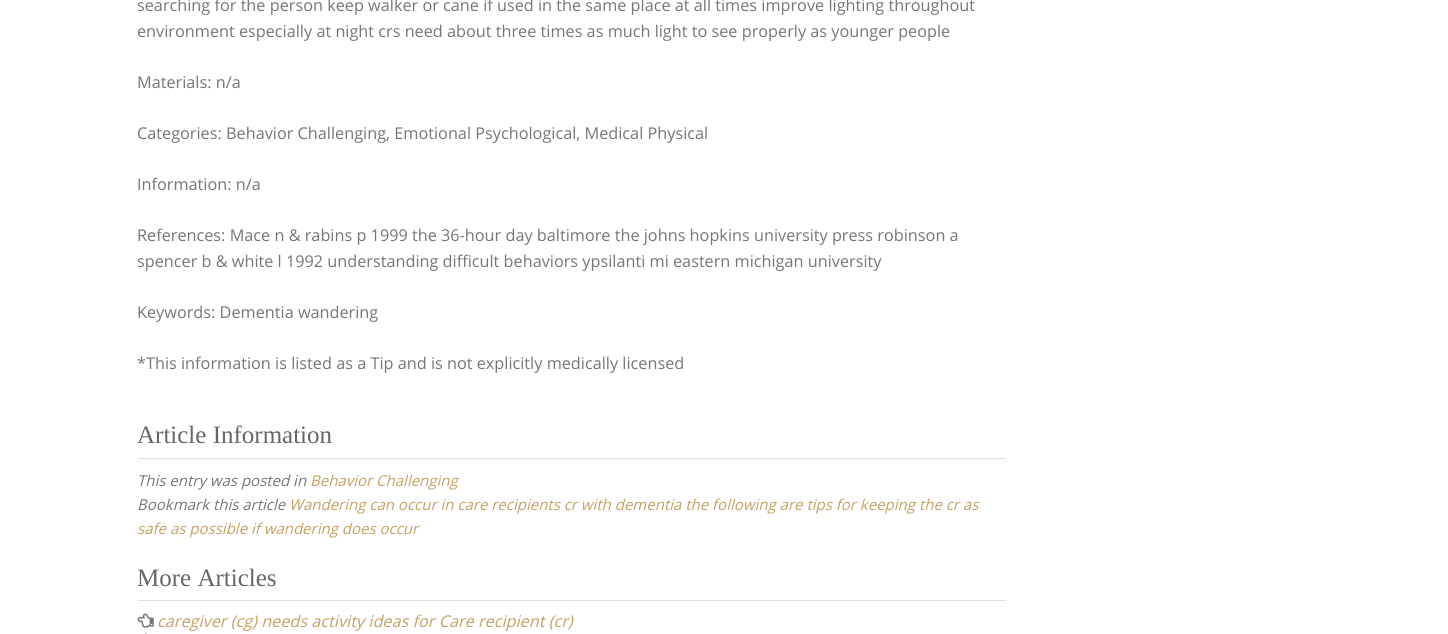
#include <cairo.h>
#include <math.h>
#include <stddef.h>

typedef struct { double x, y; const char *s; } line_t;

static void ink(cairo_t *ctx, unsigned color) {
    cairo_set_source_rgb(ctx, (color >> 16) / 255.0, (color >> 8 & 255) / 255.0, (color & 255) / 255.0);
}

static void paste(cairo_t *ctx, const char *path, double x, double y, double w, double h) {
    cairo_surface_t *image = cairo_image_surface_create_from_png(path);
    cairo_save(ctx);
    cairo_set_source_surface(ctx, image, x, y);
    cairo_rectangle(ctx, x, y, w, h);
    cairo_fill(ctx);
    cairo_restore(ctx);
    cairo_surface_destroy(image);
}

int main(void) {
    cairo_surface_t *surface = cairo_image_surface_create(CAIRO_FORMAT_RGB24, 1448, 634);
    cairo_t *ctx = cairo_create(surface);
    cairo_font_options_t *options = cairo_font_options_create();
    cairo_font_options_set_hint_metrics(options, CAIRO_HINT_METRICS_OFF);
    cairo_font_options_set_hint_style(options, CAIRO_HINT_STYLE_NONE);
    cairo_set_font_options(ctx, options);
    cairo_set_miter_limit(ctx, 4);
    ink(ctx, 0xFFFFFF);
    cairo_paint(ctx);
    cairo_select_font_face(ctx, "Open Sans", CAIRO_FONT_SLANT_NORMAL, CAIRO_FONT_WEIGHT_NORMAL);
    cairo_set_font_size(ctx, 16.25);
    ink(ctx, 0x767676);
    {
        static const line_t items[] = {
            {137, 11, "searching for the person keep walker or cane if used in the same place at all times improve lighting throughout"},
            {137, 37, "environment especially at night crs need about three times as much light to see properly as younger people"},
            {137, 88, "Materials: n/a"},
            {137, 139, "Categories: Behavior Challenging, Emotional Psychological, Medical Physical"},
            {137, 190, "Information: n/a"},
            {137, 241, "References: Mace n & rabins p 1999 the 36-hour day baltimore the johns hopkins university press robinson a"},
            {137, 267, "spencer b & white l 1992 understanding difficult behaviors ypsilanti mi eastern michigan university"},
            {137, 318, "Keywords: Dementia wandering"},
            {137, 369, "*This information is listed as a Tip and is not explicitly medically licensed"},
        };
        for (size_t i = 0; i < sizeof items / sizeof *items; i++) {
            cairo_move_to(ctx, items[i].x, items[i].y);
            cairo_show_text(ctx, items[i].s);
        }
    }
    ink(ctx, 0xE0E0E0);
    cairo_rectangle(ctx, 138, 458, 868, 1);
    cairo_fill(ctx);
    cairo_select_font_face(ctx, "Liberation Serif", CAIRO_FONT_SLANT_NORMAL, CAIRO_FONT_WEIGHT_NORMAL);
    cairo_set_font_size(ctx, 25);
    ink(ctx, 0x666666);
    cairo_move_to(ctx, 137, 443);
    cairo_show_text(ctx, "Article Information");
    cairo_select_font_face(ctx, "Open Sans", CAIRO_FONT_SLANT_ITALIC, CAIRO_FONT_WEIGHT_NORMAL);
    cairo_set_font_size(ctx, 15);
    ink(ctx, 0x767676);
    cairo_move_to(ctx, 137, 486);
    cairo_show_text(ctx, "This entry was posted in");
    ink(ctx, 0xC69F63);
    cairo_move_to(ctx, 310, 486);
    cairo_show_text(ctx, "Behavior Challenging");
    ink(ctx, 0x767676);
    cairo_move_to(ctx, 137, 510);
    cairo_show_text(ctx, "Bookmark this article");
    ink(ctx, 0xC69F63);
    cairo_move_to(ctx, 289, 510);
    cairo_show_text(ctx, "Wandering can occur in care recipients cr with dementia the following are tips for keeping the cr as");
    cairo_move_to(ctx, 137, 534);
    cairo_show_text(ctx, "safe as possible if wandering does occur");
    ink(ctx, 0xE0E0E0);
    cairo_rectangle(ctx, 138, 600, 868, 1);
    cairo_fill(ctx);
    cairo_select_font_face(ctx, "Liberation Serif", CAIRO_FONT_SLANT_NORMAL, CAIRO_FONT_WEIGHT_NORMAL);
    cairo_set_font_size(ctx, 25);
    ink(ctx, 0x666666);
    cairo_move_to(ctx, 137, 586);
    cairo_show_text(ctx, "More Articles");
    paste(ctx, "media/1.png", 137, 613, 17, 15);
    cairo_select_font_face(ctx, "Open Sans", CAIRO_FONT_SLANT_ITALIC, CAIRO_FONT_WEIGHT_NORMAL);
    cairo_set_font_size(ctx, 16.25);
    ink(ctx, 0xC69F63);
    cairo_move_to(ctx, 157, 627);
    cairo_show_text(ctx, "caregiver (cg) needs activity ideas for Care recipient (cr)");
    paste(ctx, "media/2.png", 144, 633, 3, 1);
    cairo_surface_write_to_png(surface, "image.png");
    cairo_font_options_destroy(options);
    cairo_destroy(ctx);
    cairo_surface_destroy(surface);
    return 0;
}
